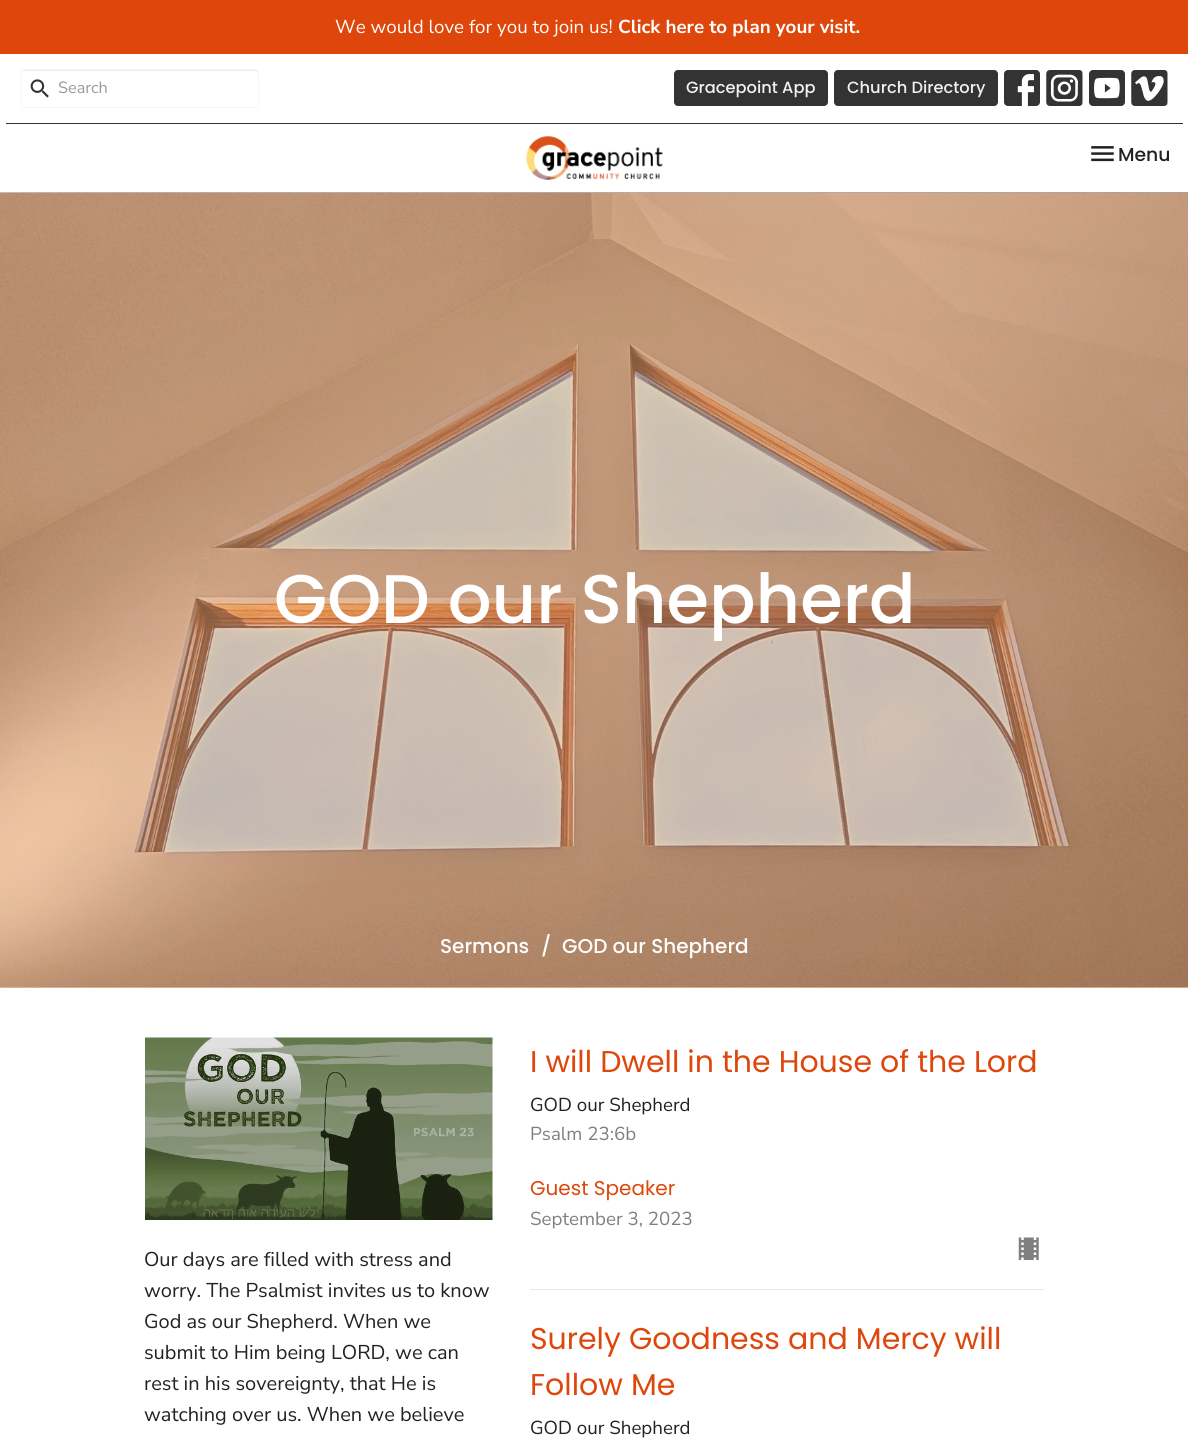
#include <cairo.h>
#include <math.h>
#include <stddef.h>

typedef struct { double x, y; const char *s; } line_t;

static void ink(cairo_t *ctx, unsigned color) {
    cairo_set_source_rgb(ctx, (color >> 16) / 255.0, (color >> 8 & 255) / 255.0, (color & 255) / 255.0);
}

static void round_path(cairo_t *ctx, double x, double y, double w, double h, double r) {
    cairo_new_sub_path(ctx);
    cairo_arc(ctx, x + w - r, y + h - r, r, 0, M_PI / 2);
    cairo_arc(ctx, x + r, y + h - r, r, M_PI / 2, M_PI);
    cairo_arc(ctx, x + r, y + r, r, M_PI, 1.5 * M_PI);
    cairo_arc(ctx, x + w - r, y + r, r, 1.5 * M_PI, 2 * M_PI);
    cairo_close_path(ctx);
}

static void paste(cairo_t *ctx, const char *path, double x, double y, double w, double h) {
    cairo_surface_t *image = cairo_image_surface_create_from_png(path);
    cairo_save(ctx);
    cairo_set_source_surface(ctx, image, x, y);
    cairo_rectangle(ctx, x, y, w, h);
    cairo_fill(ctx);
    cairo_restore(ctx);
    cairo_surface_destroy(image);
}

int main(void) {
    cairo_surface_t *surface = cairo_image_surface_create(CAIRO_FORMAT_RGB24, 1188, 1446);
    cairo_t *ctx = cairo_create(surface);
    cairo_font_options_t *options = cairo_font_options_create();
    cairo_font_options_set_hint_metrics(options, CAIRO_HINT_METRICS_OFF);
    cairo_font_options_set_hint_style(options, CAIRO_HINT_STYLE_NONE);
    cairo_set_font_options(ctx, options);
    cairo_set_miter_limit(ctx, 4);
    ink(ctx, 0xFFFFFF);
    cairo_paint(ctx);
    ink(ctx, 0xFDD4B4);
    cairo_rectangle(ctx, 0, 987, 1188, 1);
    cairo_fill(ctx);
    ink(ctx, 0xDE460B);
    cairo_rectangle(ctx, 0, 0, 1188, 54);
    cairo_fill(ctx);
    cairo_select_font_face(ctx, "Nunito Sans", CAIRO_FONT_SLANT_NORMAL, CAIRO_FONT_WEIGHT_NORMAL);
    cairo_set_font_size(ctx, 18.75);
    ink(ctx, 0xFFFFFF);
    cairo_move_to(ctx, 335, 33);
    cairo_show_text(ctx, "We would love for you to join us!");
    cairo_select_font_face(ctx, "Nunito Sans", CAIRO_FONT_SLANT_NORMAL, CAIRO_FONT_WEIGHT_BOLD);
    cairo_move_to(ctx, 618, 33);
    cairo_show_text(ctx, "Click here to plan your visit.");
    ink(ctx, 0x333333);
    cairo_rectangle(ctx, 6, 123, 1177, 1);
    cairo_fill(ctx);
    ink(ctx, 0xECECEC);
    cairo_new_path(ctx);
    cairo_move_to(ctx, 25, 71);
    cairo_line_to(ctx, 255, 71);
    cairo_curve_to(ctx, 256, 71, 258, 72, 258, 74);
    cairo_curve_to(ctx, 258, 72, 258, 70, 256, 70);
    cairo_line_to(ctx, 25, 70);
    cairo_line_to(ctx, 23, 72);
    cairo_close_path(ctx);
    cairo_fill(ctx);
    round_path(ctx, 21.5, 69.5, 237, 38, 3.5);
    ink(ctx, 0xF7F7F7);
    cairo_set_line_width(ctx, 1);
    cairo_stroke(ctx);
    paste(ctx, "media/1.png", 30, 79, 19, 19);
    cairo_select_font_face(ctx, "Nunito Sans", CAIRO_FONT_SLANT_NORMAL, CAIRO_FONT_WEIGHT_NORMAL);
    cairo_set_font_size(ctx, 16.25);
    ink(ctx, 0x999999);
    cairo_move_to(ctx, 58, 93);
    cairo_show_text(ctx, "Search");
    ink(ctx, 0x333333);
    round_path(ctx, 674, 70, 154, 36, 4);
    cairo_fill(ctx);
    cairo_select_font_face(ctx, "Poppins Medium", CAIRO_FONT_SLANT_NORMAL, CAIRO_FONT_WEIGHT_NORMAL);
    ink(ctx, 0xF1F1F1);
    cairo_move_to(ctx, 686, 93);
    cairo_show_text(ctx, "Gracepoint App");
    ink(ctx, 0x333333);
    round_path(ctx, 834, 70, 164, 36, 4);
    cairo_fill(ctx);
    ink(ctx, 0xF1F1F1);
    cairo_move_to(ctx, 847, 93);
    cairo_show_text(ctx, "Church Directory");
    paste(ctx, "media/2.png", 1004, 70, 36, 36);
    paste(ctx, "media/3.png", 1046, 70, 37, 36);
    paste(ctx, "media/4.png", 1089, 70, 36, 36);
    paste(ctx, "media/5.png", 1131, 70, 37, 36);
    paste(ctx, "media/6.png", 526, 136, 137, 44);
    paste(ctx, "media/7.png", 1091, 146, 23, 16);
    cairo_set_font_size(ctx, 18.75);
    ink(ctx, 0x222222);
    cairo_move_to(ctx, 1118, 161);
    cairo_show_text(ctx, "Menu");
    paste(ctx, "media/8.png", 0, 192, 1188, 796);
    cairo_set_font_size(ctx, 68.75);
    ink(ctx, 0xFFFFFF);
    cairo_move_to(ctx, 274, 623);
    cairo_show_text(ctx, "GOD our Shepherd");
    cairo_set_font_size(ctx, 20);
    {
        static const line_t items[] = {
            {440, 953, "Sermons"},
            {541, 953, "/"},
            {562, 953, "GOD our Shepherd"},
        };
        for (size_t i = 0; i < sizeof items / sizeof *items; i++) {
            cairo_move_to(ctx, items[i].x, items[i].y);
            cairo_show_text(ctx, items[i].s);
        }
    }
    paste(ctx, "media/9.png", 145, 1037, 348, 183);
    cairo_select_font_face(ctx, "Nunito Sans", CAIRO_FONT_SLANT_NORMAL, CAIRO_FONT_WEIGHT_NORMAL);
    ink(ctx, 0x222222);
    {
        static const line_t items[] = {
            {144, 1266, "Our days are filled with stress and"},
            {144, 1297, "worry. The Psalmist invites us to know"},
            {144, 1328, "God as our Shepherd. When we"},
            {144, 1359, "submit to Him being LORD, we can"},
            {144, 1390, "rest in his sovereignty, that He is"},
            {144, 1421, "watching over us. When we believe"},
        };
        for (size_t i = 0; i < sizeof items / sizeof *items; i++) {
            cairo_move_to(ctx, items[i].x, items[i].y);
            cairo_show_text(ctx, items[i].s);
        }
    }
    ink(ctx, 0xE6E6E6);
    cairo_rectangle(ctx, 530, 1289, 514, 1);
    cairo_fill(ctx);
    cairo_select_font_face(ctx, "Poppins", CAIRO_FONT_SLANT_NORMAL, CAIRO_FONT_WEIGHT_NORMAL);
    cairo_set_font_size(ctx, 30);
    ink(ctx, 0xDE460B);
    cairo_move_to(ctx, 530, 1072);
    cairo_show_text(ctx, "I will Dwell in the House of the Lord");
    cairo_select_font_face(ctx, "Nunito Sans", CAIRO_FONT_SLANT_NORMAL, CAIRO_FONT_WEIGHT_NORMAL);
    cairo_set_font_size(ctx, 18.75);
    ink(ctx, 0x222222);
    cairo_move_to(ctx, 530, 1111);
    cairo_show_text(ctx, "GOD our Shepherd");
    ink(ctx, 0x808080);
    cairo_move_to(ctx, 530, 1140);
    cairo_show_text(ctx, "Psalm 23:6b");
    cairo_select_font_face(ctx, "Poppins", CAIRO_FONT_SLANT_NORMAL, CAIRO_FONT_WEIGHT_NORMAL);
    cairo_set_font_size(ctx, 20);
    ink(ctx, 0xDE460B);
    cairo_move_to(ctx, 530, 1195);
    cairo_show_text(ctx, "Guest Speaker");
    cairo_select_font_face(ctx, "Nunito Sans", CAIRO_FONT_SLANT_NORMAL, CAIRO_FONT_WEIGHT_NORMAL);
    cairo_set_font_size(ctx, 18.75);
    ink(ctx, 0x808080);
    cairo_move_to(ctx, 530, 1225);
    cairo_show_text(ctx, "September 3, 2023");
    paste(ctx, "media/10.png", 1018, 1237, 21, 23);
    cairo_select_font_face(ctx, "Poppins", CAIRO_FONT_SLANT_NORMAL, CAIRO_FONT_WEIGHT_NORMAL);
    cairo_set_font_size(ctx, 30);
    ink(ctx, 0xDE460B);
    cairo_move_to(ctx, 530, 1349);
    cairo_show_text(ctx, "Surely Goodness and Mercy will");
    cairo_move_to(ctx, 530, 1395);
    cairo_show_text(ctx, "Follow Me");
    cairo_select_font_face(ctx, "Nunito Sans", CAIRO_FONT_SLANT_NORMAL, CAIRO_FONT_WEIGHT_NORMAL);
    cairo_set_font_size(ctx, 18.75);
    ink(ctx, 0x222222);
    cairo_move_to(ctx, 530, 1434);
    cairo_show_text(ctx, "GOD our Shepherd");
    cairo_surface_write_to_png(surface, "image.png");
    cairo_font_options_destroy(options);
    cairo_destroy(ctx);
    cairo_surface_destroy(surface);
    return 0;
}
